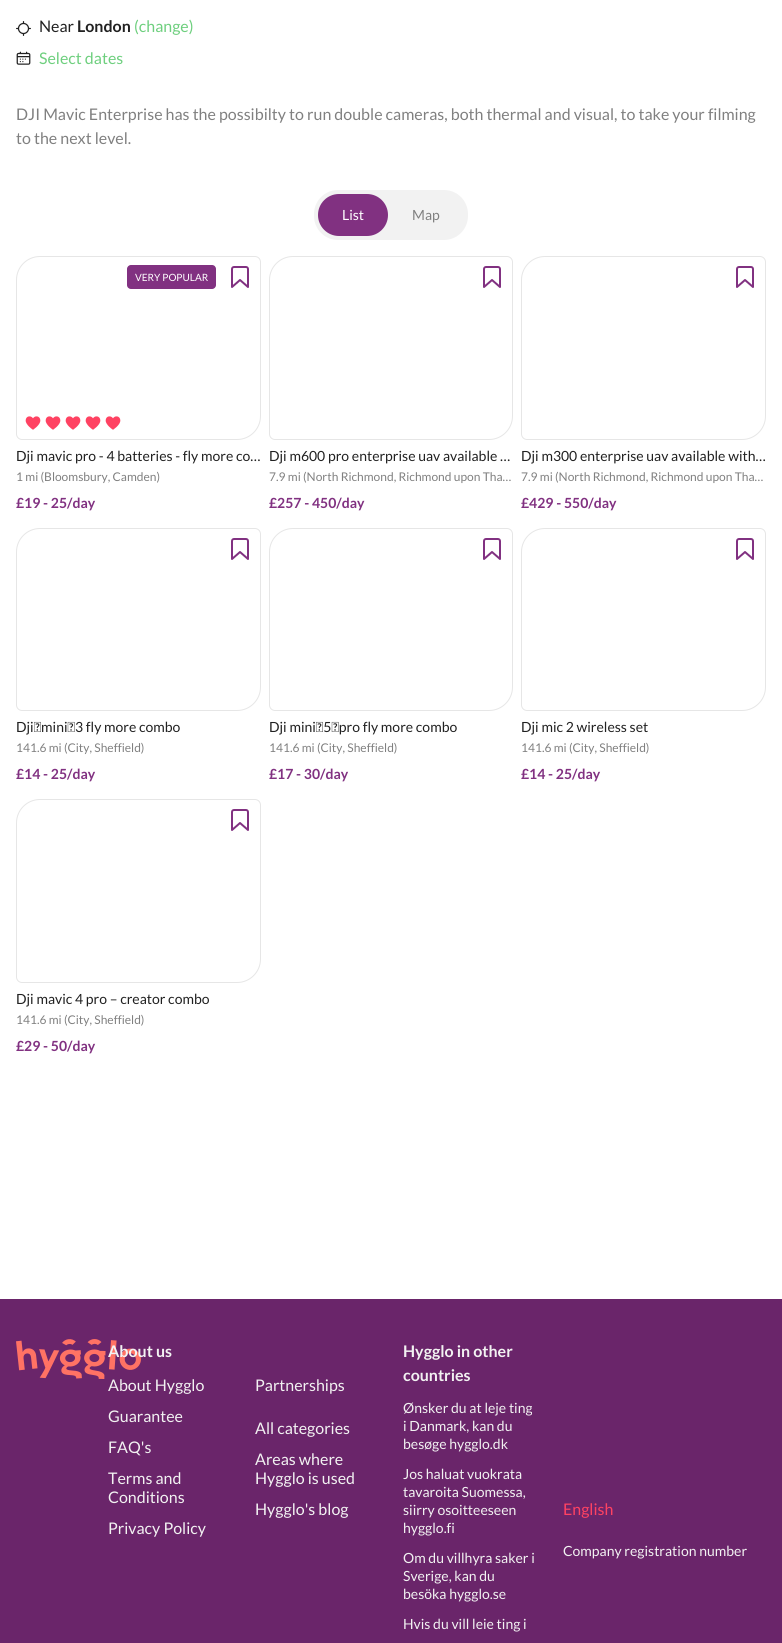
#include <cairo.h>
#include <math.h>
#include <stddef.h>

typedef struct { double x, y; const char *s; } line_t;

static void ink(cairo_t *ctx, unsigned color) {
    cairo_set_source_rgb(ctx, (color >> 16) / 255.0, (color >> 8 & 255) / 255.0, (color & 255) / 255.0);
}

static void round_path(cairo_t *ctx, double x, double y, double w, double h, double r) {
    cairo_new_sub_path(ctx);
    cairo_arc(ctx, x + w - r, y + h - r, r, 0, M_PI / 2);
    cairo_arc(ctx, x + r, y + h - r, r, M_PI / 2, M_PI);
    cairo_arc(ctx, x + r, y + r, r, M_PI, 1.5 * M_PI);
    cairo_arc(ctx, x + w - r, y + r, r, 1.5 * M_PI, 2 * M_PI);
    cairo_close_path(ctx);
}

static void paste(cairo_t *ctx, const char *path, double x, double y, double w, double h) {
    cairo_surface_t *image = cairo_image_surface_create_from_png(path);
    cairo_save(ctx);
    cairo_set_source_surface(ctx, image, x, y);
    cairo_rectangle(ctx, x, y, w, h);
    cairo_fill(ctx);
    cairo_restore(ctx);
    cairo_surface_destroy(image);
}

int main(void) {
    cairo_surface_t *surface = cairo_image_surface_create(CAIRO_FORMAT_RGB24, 782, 1643);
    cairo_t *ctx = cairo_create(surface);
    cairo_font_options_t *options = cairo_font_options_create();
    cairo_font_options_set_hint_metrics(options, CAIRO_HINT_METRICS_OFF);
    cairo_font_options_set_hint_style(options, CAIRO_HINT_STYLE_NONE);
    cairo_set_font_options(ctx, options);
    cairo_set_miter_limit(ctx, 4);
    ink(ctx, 0xFFFFFF);
    cairo_paint(ctx);
    paste(ctx, "media/1.png", 16, 21, 15, 15);
    cairo_select_font_face(ctx, "Lato", CAIRO_FONT_SLANT_NORMAL, CAIRO_FONT_WEIGHT_NORMAL);
    cairo_set_font_size(ctx, 16);
    ink(ctx, 0x212121);
    cairo_move_to(ctx, 39, 32);
    cairo_show_text(ctx, "Near");
    cairo_select_font_face(ctx, "Lato", CAIRO_FONT_SLANT_NORMAL, CAIRO_FONT_WEIGHT_BOLD);
    cairo_move_to(ctx, 77, 32);
    cairo_show_text(ctx, "London");
    cairo_select_font_face(ctx, "Lato", CAIRO_FONT_SLANT_NORMAL, CAIRO_FONT_WEIGHT_NORMAL);
    ink(ctx, 0x6ECF7E);
    cairo_move_to(ctx, 134, 32);
    cairo_show_text(ctx, "(change)");
    paste(ctx, "media/2.png", 16, 51, 15, 14);
    cairo_move_to(ctx, 39, 64);
    cairo_show_text(ctx, "Select dates");
    ink(ctx, 0x808080);
    cairo_move_to(ctx, 16, 120);
    cairo_show_text(ctx, "DJI Mavic Enterprise has the possibilty to run double cameras, both thermal and visual, to take your filming");
    cairo_move_to(ctx, 16, 144);
    cairo_show_text(ctx, "to the next level.");
    ink(ctx, 0xF2F2F2);
    round_path(ctx, 314, 190, 154, 50, 24);
    cairo_fill(ctx);
    ink(ctx, 0x813181);
    round_path(ctx, 318, 194, 70, 42, 21);
    cairo_fill(ctx);
    cairo_set_font_size(ctx, 14);
    ink(ctx, 0xFFFFFF);
    cairo_move_to(ctx, 342, 220);
    cairo_show_text(ctx, "List");
    ink(ctx, 0x808080);
    cairo_move_to(ctx, 412, 220);
    cairo_show_text(ctx, "Map");
    cairo_new_path(ctx);
    cairo_move_to(ctx, 40, 256.5);
    cairo_line_to(ctx, 255, 256.5);
    cairo_curve_to(ctx, 258, 256.5, 260.5, 259, 260.5, 262);
    cairo_line_to(ctx, 260.5, 416);
    cairo_curve_to(ctx, 260.5, 429, 250, 439.5, 237, 439.5);
    cairo_line_to(ctx, 22, 439.5);
    cairo_curve_to(ctx, 19, 439.5, 16.5, 437, 16.5, 434);
    cairo_line_to(ctx, 16.5, 280);
    cairo_curve_to(ctx, 16.5, 267, 27, 256.5, 40, 256.5);
    cairo_close_path(ctx);
    ink(ctx, 0xE6E6E6);
    cairo_set_line_width(ctx, 1);
    cairo_stroke(ctx);
    ink(ctx, 0x813181);
    round_path(ctx, 127, 265, 89, 24, 4);
    cairo_fill(ctx);
    cairo_set_font_size(ctx, 10);
    ink(ctx, 0xFFFFFF);
    cairo_move_to(ctx, 135, 281);
    cairo_show_text(ctx, "VERY POPULAR");
    paste(ctx, "media/3.png", 231, 266, 18, 22);
    paste(ctx, "media/4.png", 25, 416, 16, 14);
    paste(ctx, "media/4.png", 45, 416, 16, 14);
    paste(ctx, "media/4.png", 65, 416, 16, 14);
    paste(ctx, "media/4.png", 85, 416, 16, 14);
    paste(ctx, "media/4.png", 105, 416, 16, 14);
    cairo_set_font_size(ctx, 14);
    ink(ctx, 0x212121);
    cairo_move_to(ctx, 16, 461);
    cairo_show_text(ctx, "Dji mavic pro - 4 batteries - fly more co…");
    cairo_set_font_size(ctx, 12);
    ink(ctx, 0x808080);
    cairo_move_to(ctx, 16, 481);
    cairo_show_text(ctx, "1 mi (Bloomsbury, Camden)");
    cairo_select_font_face(ctx, "Lato", CAIRO_FONT_SLANT_NORMAL, CAIRO_FONT_WEIGHT_BOLD);
    cairo_set_font_size(ctx, 14);
    ink(ctx, 0x813181);
    cairo_move_to(ctx, 16, 508);
    cairo_show_text(ctx, "£19 - 25/day");
    cairo_new_path(ctx);
    cairo_move_to(ctx, 293, 256.5);
    cairo_line_to(ctx, 507, 256.5);
    cairo_curve_to(ctx, 510, 256.5, 512.5, 259, 512.5, 262);
    cairo_line_to(ctx, 512.5, 416);
    cairo_curve_to(ctx, 512.5, 429, 502, 439.5, 489, 439.5);
    cairo_line_to(ctx, 275, 439.5);
    cairo_curve_to(ctx, 272, 439.5, 269.5, 437, 269.5, 434);
    cairo_line_to(ctx, 269.5, 280);
    cairo_curve_to(ctx, 269.5, 267, 280, 256.5, 293, 256.5);
    cairo_close_path(ctx);
    ink(ctx, 0xE6E6E6);
    cairo_stroke(ctx);
    paste(ctx, "media/3.png", 483, 266, 18, 22);
    cairo_select_font_face(ctx, "Lato", CAIRO_FONT_SLANT_NORMAL, CAIRO_FONT_WEIGHT_NORMAL);
    ink(ctx, 0x212121);
    cairo_move_to(ctx, 269, 461);
    cairo_show_text(ctx, "Dji m600 pro enterprise uav available …");
    cairo_set_font_size(ctx, 12);
    ink(ctx, 0x808080);
    cairo_move_to(ctx, 269, 481);
    cairo_show_text(ctx, "7.9 mi (North Richmond, Richmond upon Tha…");
    cairo_select_font_face(ctx, "Lato", CAIRO_FONT_SLANT_NORMAL, CAIRO_FONT_WEIGHT_BOLD);
    cairo_set_font_size(ctx, 14);
    ink(ctx, 0x813181);
    cairo_move_to(ctx, 269, 508);
    cairo_show_text(ctx, "£257 - 450/day");
    cairo_new_path(ctx);
    cairo_move_to(ctx, 545, 256.5);
    cairo_line_to(ctx, 760, 256.5);
    cairo_curve_to(ctx, 763, 256.5, 765.5, 259, 765.5, 262);
    cairo_line_to(ctx, 765.5, 416);
    cairo_curve_to(ctx, 765.5, 429, 755, 439.5, 742, 439.5);
    cairo_line_to(ctx, 527, 439.5);
    cairo_curve_to(ctx, 524, 439.5, 521.5, 437, 521.5, 434);
    cairo_line_to(ctx, 521.5, 280);
    cairo_curve_to(ctx, 521.5, 267, 532, 256.5, 545, 256.5);
    cairo_close_path(ctx);
    ink(ctx, 0xE6E6E6);
    cairo_stroke(ctx);
    paste(ctx, "media/3.png", 736, 266, 18, 22);
    cairo_select_font_face(ctx, "Lato", CAIRO_FONT_SLANT_NORMAL, CAIRO_FONT_WEIGHT_NORMAL);
    ink(ctx, 0x212121);
    cairo_move_to(ctx, 521, 461);
    cairo_show_text(ctx, "Dji m300 enterprise uav available with…");
    cairo_set_font_size(ctx, 12);
    ink(ctx, 0x808080);
    cairo_move_to(ctx, 521, 481);
    cairo_show_text(ctx, "7.9 mi (North Richmond, Richmond upon Tha…");
    cairo_select_font_face(ctx, "Lato", CAIRO_FONT_SLANT_NORMAL, CAIRO_FONT_WEIGHT_BOLD);
    cairo_set_font_size(ctx, 14);
    ink(ctx, 0x813181);
    cairo_move_to(ctx, 521, 508);
    cairo_show_text(ctx, "£429 - 550/day");
    cairo_new_path(ctx);
    cairo_move_to(ctx, 40, 528.5);
    cairo_line_to(ctx, 255, 528.5);
    cairo_curve_to(ctx, 258, 528.5, 260.5, 531, 260.5, 534);
    cairo_line_to(ctx, 260.5, 687);
    cairo_curve_to(ctx, 260.5, 700, 250, 710.5, 237, 710.5);
    cairo_line_to(ctx, 22, 710.5);
    cairo_curve_to(ctx, 19, 710.5, 16.5, 708, 16.5, 705);
    cairo_line_to(ctx, 16.5, 552);
    cairo_curve_to(ctx, 16.5, 539, 27, 528.5, 40, 528.5);
    cairo_close_path(ctx);
    ink(ctx, 0xE6E6E6);
    cairo_stroke(ctx);
    paste(ctx, "media/3.png", 231, 538, 18, 22);
    cairo_select_font_face(ctx, "Lato", CAIRO_FONT_SLANT_NORMAL, CAIRO_FONT_WEIGHT_NORMAL);
    ink(ctx, 0x212121);
    cairo_move_to(ctx, 16, 732);
    cairo_show_text(ctx, "Dji mini 3 fly more combo");
    cairo_set_font_size(ctx, 12);
    ink(ctx, 0x808080);
    cairo_move_to(ctx, 16, 752);
    cairo_show_text(ctx, "141.6 mi (City, Sheffield)");
    cairo_select_font_face(ctx, "Lato", CAIRO_FONT_SLANT_NORMAL, CAIRO_FONT_WEIGHT_BOLD);
    cairo_set_font_size(ctx, 14);
    ink(ctx, 0x813181);
    cairo_move_to(ctx, 16, 779);
    cairo_show_text(ctx, "£14 - 25/day");
    cairo_new_path(ctx);
    cairo_move_to(ctx, 293, 528.5);
    cairo_line_to(ctx, 507, 528.5);
    cairo_curve_to(ctx, 510, 528.5, 512.5, 531, 512.5, 534);
    cairo_line_to(ctx, 512.5, 687);
    cairo_curve_to(ctx, 512.5, 700, 502, 710.5, 489, 710.5);
    cairo_line_to(ctx, 275, 710.5);
    cairo_curve_to(ctx, 272, 710.5, 269.5, 708, 269.5, 705);
    cairo_line_to(ctx, 269.5, 552);
    cairo_curve_to(ctx, 269.5, 539, 280, 528.5, 293, 528.5);
    cairo_close_path(ctx);
    ink(ctx, 0xE6E6E6);
    cairo_stroke(ctx);
    paste(ctx, "media/3.png", 483, 538, 18, 22);
    cairo_select_font_face(ctx, "Lato", CAIRO_FONT_SLANT_NORMAL, CAIRO_FONT_WEIGHT_NORMAL);
    ink(ctx, 0x212121);
    cairo_move_to(ctx, 269, 732);
    cairo_show_text(ctx, "Dji mini 5 pro fly more combo");
    cairo_set_font_size(ctx, 12);
    ink(ctx, 0x808080);
    cairo_move_to(ctx, 269, 752);
    cairo_show_text(ctx, "141.6 mi (City, Sheffield)");
    cairo_select_font_face(ctx, "Lato", CAIRO_FONT_SLANT_NORMAL, CAIRO_FONT_WEIGHT_BOLD);
    cairo_set_font_size(ctx, 14);
    ink(ctx, 0x813181);
    cairo_move_to(ctx, 269, 779);
    cairo_show_text(ctx, "£17 - 30/day");
    cairo_new_path(ctx);
    cairo_move_to(ctx, 545, 528.5);
    cairo_line_to(ctx, 760, 528.5);
    cairo_curve_to(ctx, 763, 528.5, 765.5, 531, 765.5, 534);
    cairo_line_to(ctx, 765.5, 687);
    cairo_curve_to(ctx, 765.5, 700, 755, 710.5, 742, 710.5);
    cairo_line_to(ctx, 527, 710.5);
    cairo_curve_to(ctx, 524, 710.5, 521.5, 708, 521.5, 705);
    cairo_line_to(ctx, 521.5, 552);
    cairo_curve_to(ctx, 521.5, 539, 532, 528.5, 545, 528.5);
    cairo_close_path(ctx);
    ink(ctx, 0xE6E6E6);
    cairo_stroke(ctx);
    paste(ctx, "media/3.png", 736, 538, 18, 22);
    cairo_select_font_face(ctx, "Lato", CAIRO_FONT_SLANT_NORMAL, CAIRO_FONT_WEIGHT_NORMAL);
    ink(ctx, 0x212121);
    cairo_move_to(ctx, 521, 732);
    cairo_show_text(ctx, "Dji mic 2 wireless set");
    cairo_set_font_size(ctx, 12);
    ink(ctx, 0x808080);
    cairo_move_to(ctx, 521, 752);
    cairo_show_text(ctx, "141.6 mi (City, Sheffield)");
    cairo_select_font_face(ctx, "Lato", CAIRO_FONT_SLANT_NORMAL, CAIRO_FONT_WEIGHT_BOLD);
    cairo_set_font_size(ctx, 14);
    ink(ctx, 0x813181);
    cairo_move_to(ctx, 521, 779);
    cairo_show_text(ctx, "£14 - 25/day");
    cairo_new_path(ctx);
    cairo_move_to(ctx, 40, 799.5);
    cairo_line_to(ctx, 255, 799.5);
    cairo_curve_to(ctx, 258, 799.5, 260.5, 802, 260.5, 805);
    cairo_line_to(ctx, 260.5, 959);
    cairo_curve_to(ctx, 260.5, 972, 250, 982.5, 237, 982.5);
    cairo_line_to(ctx, 22, 982.5);
    cairo_curve_to(ctx, 19, 982.5, 16.5, 980, 16.5, 977);
    cairo_line_to(ctx, 16.5, 823);
    cairo_curve_to(ctx, 16.5, 810, 27, 799.5, 40, 799.5);
    cairo_close_path(ctx);
    ink(ctx, 0xE6E6E6);
    cairo_stroke(ctx);
    paste(ctx, "media/3.png", 231, 809, 18, 22);
    cairo_select_font_face(ctx, "Lato", CAIRO_FONT_SLANT_NORMAL, CAIRO_FONT_WEIGHT_NORMAL);
    ink(ctx, 0x212121);
    cairo_move_to(ctx, 16, 1004);
    cairo_show_text(ctx, "Dji mavic 4 pro – creator combo");
    cairo_set_font_size(ctx, 12);
    ink(ctx, 0x808080);
    cairo_move_to(ctx, 16, 1024);
    cairo_show_text(ctx, "141.6 mi (City, Sheffield)");
    cairo_select_font_face(ctx, "Lato", CAIRO_FONT_SLANT_NORMAL, CAIRO_FONT_WEIGHT_BOLD);
    cairo_set_font_size(ctx, 14);
    ink(ctx, 0x813181);
    cairo_move_to(ctx, 16, 1051);
    cairo_show_text(ctx, "£29 - 50/day");
    ink(ctx, 0x6A256A);
    cairo_rectangle(ctx, 0, 1299, 782, 344);
    cairo_fill(ctx);
    paste(ctx, "media/5.png", 16, 1339, 125, 40);
    cairo_set_font_size(ctx, 16);
    ink(ctx, 0xF2F2F2);
    cairo_move_to(ctx, 108, 1357);
    cairo_show_text(ctx, "About us");
    cairo_select_font_face(ctx, "Lato", CAIRO_FONT_SLANT_NORMAL, CAIRO_FONT_WEIGHT_NORMAL);
    {
        static const line_t items[] = {
            {108, 1391, "About Hygglo"},
            {108, 1422, "Guarantee"},
            {108, 1453, "FAQ's"},
            {108, 1484, "Terms and"},
            {108, 1503, "Conditions"},
            {108, 1534, "Privacy Policy"},
            {255, 1391, "Partnerships"},
            {255, 1434, "All categories"},
            {255, 1465, "Areas where"},
            {255, 1484, "Hygglo is used"},
            {255, 1515, "Hygglo's blog"},
        };
        for (size_t i = 0; i < sizeof items / sizeof *items; i++) {
            cairo_move_to(ctx, items[i].x, items[i].y);
            cairo_show_text(ctx, items[i].s);
        }
    }
    cairo_select_font_face(ctx, "Lato", CAIRO_FONT_SLANT_NORMAL, CAIRO_FONT_WEIGHT_BOLD);
    cairo_move_to(ctx, 403, 1357);
    cairo_show_text(ctx, "Hygglo in other");
    cairo_move_to(ctx, 403, 1381);
    cairo_show_text(ctx, "countries");
    cairo_select_font_face(ctx, "Lato", CAIRO_FONT_SLANT_NORMAL, CAIRO_FONT_WEIGHT_NORMAL);
    cairo_set_font_size(ctx, 14);
    {
        static const line_t items[] = {
            {403, 1413, "Ønsker du at leje ting"},
            {403, 1431, "i Danmark, kan du"},
            {403, 1449, "besøge hygglo.dk"},
            {403, 1479, "Jos haluat vuokrata"},
            {403, 1497, "tavaroita Suomessa,"},
            {403, 1515, "siirry osoitteeseen"},
            {403, 1533, "hygglo.fi"},
            {403, 1563, "Om du villhyra saker i"},
            {403, 1581, "Sverige, kan du"},
            {403, 1599, "besöka hygglo.se"},
            {403, 1629, "Hvis du vill leie ting i"},
        };
        for (size_t i = 0; i < sizeof items / sizeof *items; i++) {
            cairo_move_to(ctx, items[i].x, items[i].y);
            cairo_show_text(ctx, items[i].s);
        }
    }
    cairo_set_font_size(ctx, 16);
    ink(ctx, 0xFF4262);
    cairo_move_to(ctx, 563, 1515);
    cairo_show_text(ctx, "English");
    cairo_set_font_size(ctx, 14);
    ink(ctx, 0xF2F2F2);
    cairo_move_to(ctx, 563, 1556);
    cairo_show_text(ctx, "Company registration number");
    cairo_surface_write_to_png(surface, "image.png");
    cairo_font_options_destroy(options);
    cairo_destroy(ctx);
    cairo_surface_destroy(surface);
    return 0;
}
